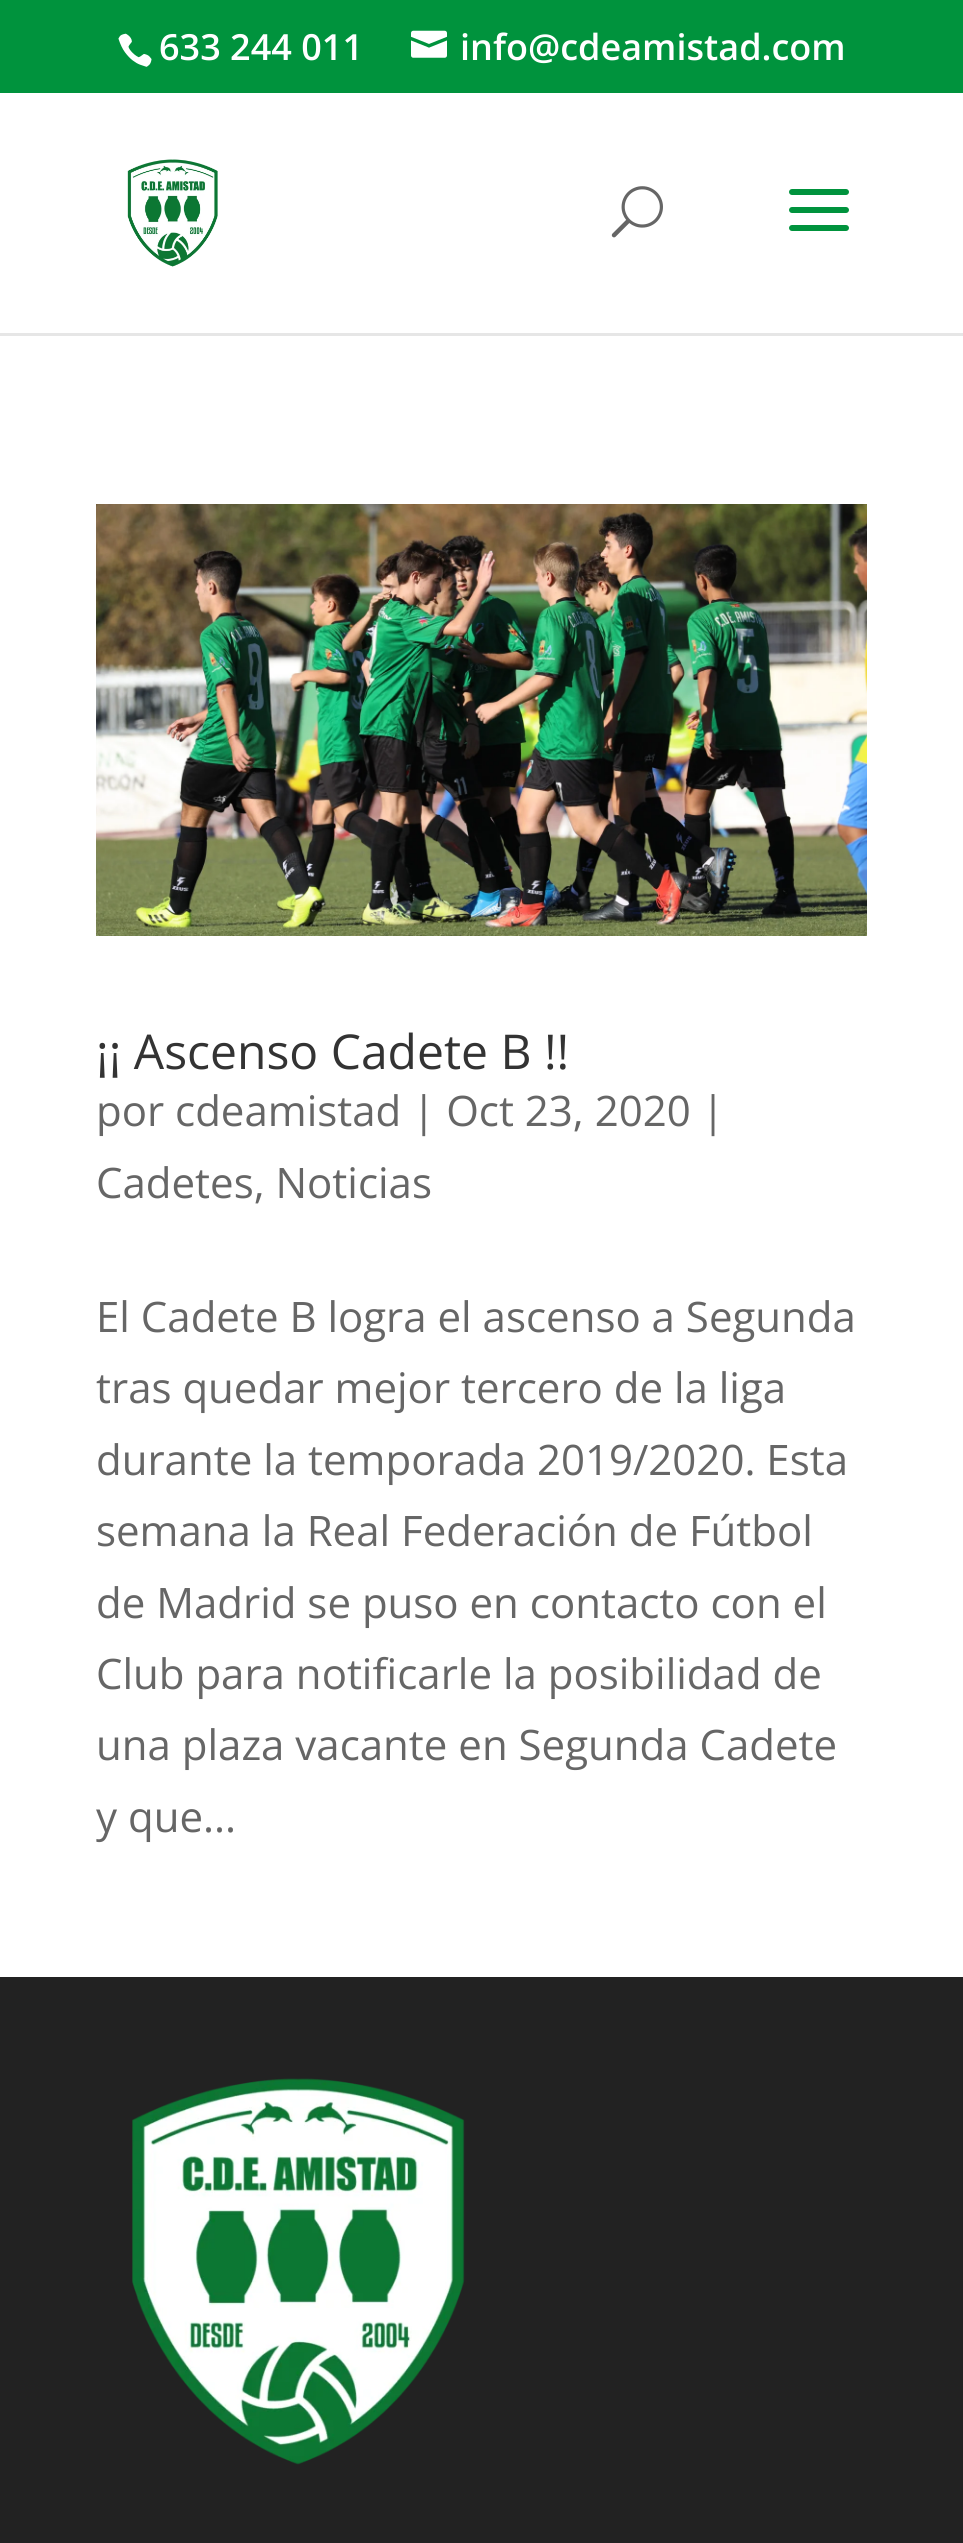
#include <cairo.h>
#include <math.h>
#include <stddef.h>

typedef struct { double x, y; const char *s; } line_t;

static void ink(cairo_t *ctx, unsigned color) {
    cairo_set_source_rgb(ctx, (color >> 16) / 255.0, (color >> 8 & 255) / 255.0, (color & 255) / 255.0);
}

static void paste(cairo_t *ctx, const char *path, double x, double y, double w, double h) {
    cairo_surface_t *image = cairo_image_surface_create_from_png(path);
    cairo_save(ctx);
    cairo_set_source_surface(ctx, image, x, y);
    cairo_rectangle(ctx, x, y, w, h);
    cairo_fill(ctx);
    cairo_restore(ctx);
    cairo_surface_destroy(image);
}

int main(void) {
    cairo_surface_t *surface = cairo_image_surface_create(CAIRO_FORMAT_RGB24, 963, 2543);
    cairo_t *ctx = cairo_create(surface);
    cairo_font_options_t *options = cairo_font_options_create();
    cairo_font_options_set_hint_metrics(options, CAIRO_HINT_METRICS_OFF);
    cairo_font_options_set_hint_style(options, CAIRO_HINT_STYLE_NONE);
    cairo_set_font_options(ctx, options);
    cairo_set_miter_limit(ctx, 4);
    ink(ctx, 0xFFFFFF);
    cairo_paint(ctx);
    ink(ctx, 0x00933D);
    cairo_rectangle(ctx, 0, 0, 963, 93);
    cairo_fill(ctx);
    paste(ctx, "media/1.png", 118, 33, 34, 34);
    cairo_select_font_face(ctx, "Open Sans SemiBold", CAIRO_FONT_SLANT_NORMAL, CAIRO_FONT_WEIGHT_NORMAL);
    cairo_set_font_size(ctx, 36);
    ink(ctx, 0xFFFFFF);
    cairo_move_to(ctx, 159, 60);
    cairo_show_text(ctx, "633 244 011");
    paste(ctx, "media/2.png", 411, 30, 36, 28);
    cairo_move_to(ctx, 460, 60);
    cairo_show_text(ctx, "info@cdeamistad.com");
    ink(ctx, 0xE6E6E6);
    cairo_rectangle(ctx, 0, 333, 963, 3);
    cairo_fill(ctx);
    paste(ctx, "media/3.png", 127, 159, 91, 108);
    paste(ctx, "media/4.png", 611, 186, 52, 52);
    paste(ctx, "media/5.png", 789, 189, 60, 42);
    paste(ctx, "media/6.png", 96, 504, 771, 432);
    cairo_select_font_face(ctx, "Open Sans", CAIRO_FONT_SLANT_NORMAL, CAIRO_FONT_WEIGHT_NORMAL);
    cairo_set_font_size(ctx, 48);
    ink(ctx, 0x333333);
    cairo_move_to(ctx, 96, 1069);
    cairo_show_text(ctx, "¡¡ Ascenso Cadete B !!");
    cairo_set_font_size(ctx, 42);
    ink(ctx, 0x666666);
    {
        static const line_t items[] = {
            {96, 1126, "por cdeamistad | Oct 23, 2020 |"},
            {96, 1198, "Cadetes, Noticias"},
            {96, 1332, "El Cadete B logra el ascenso a Segunda"},
            {96, 1403, "tras quedar mejor tercero de la liga"},
            {96, 1475, "durante la temporada 2019/2020. Esta"},
            {96, 1546, "semana la Real Federación de Fútbol"},
            {96, 1618, "de Madrid se puso en contacto con el"},
            {96, 1689, "Club para notificarle la posibilidad de"},
            {96, 1760, "una plaza vacante en Segunda Cadete"},
            {96, 1832, "y que..."},
        };
        for (size_t i = 0; i < sizeof items / sizeof *items; i++) {
            cairo_move_to(ctx, items[i].x, items[i].y);
            cairo_show_text(ctx, items[i].s);
        }
    }
    ink(ctx, 0x222222);
    cairo_rectangle(ctx, 0, 1977, 963, 566);
    cairo_fill(ctx);
    paste(ctx, "media/7.png", 132, 2078, 333, 387);
    cairo_surface_write_to_png(surface, "image.png");
    cairo_font_options_destroy(options);
    cairo_destroy(ctx);
    cairo_surface_destroy(surface);
    return 0;
}
